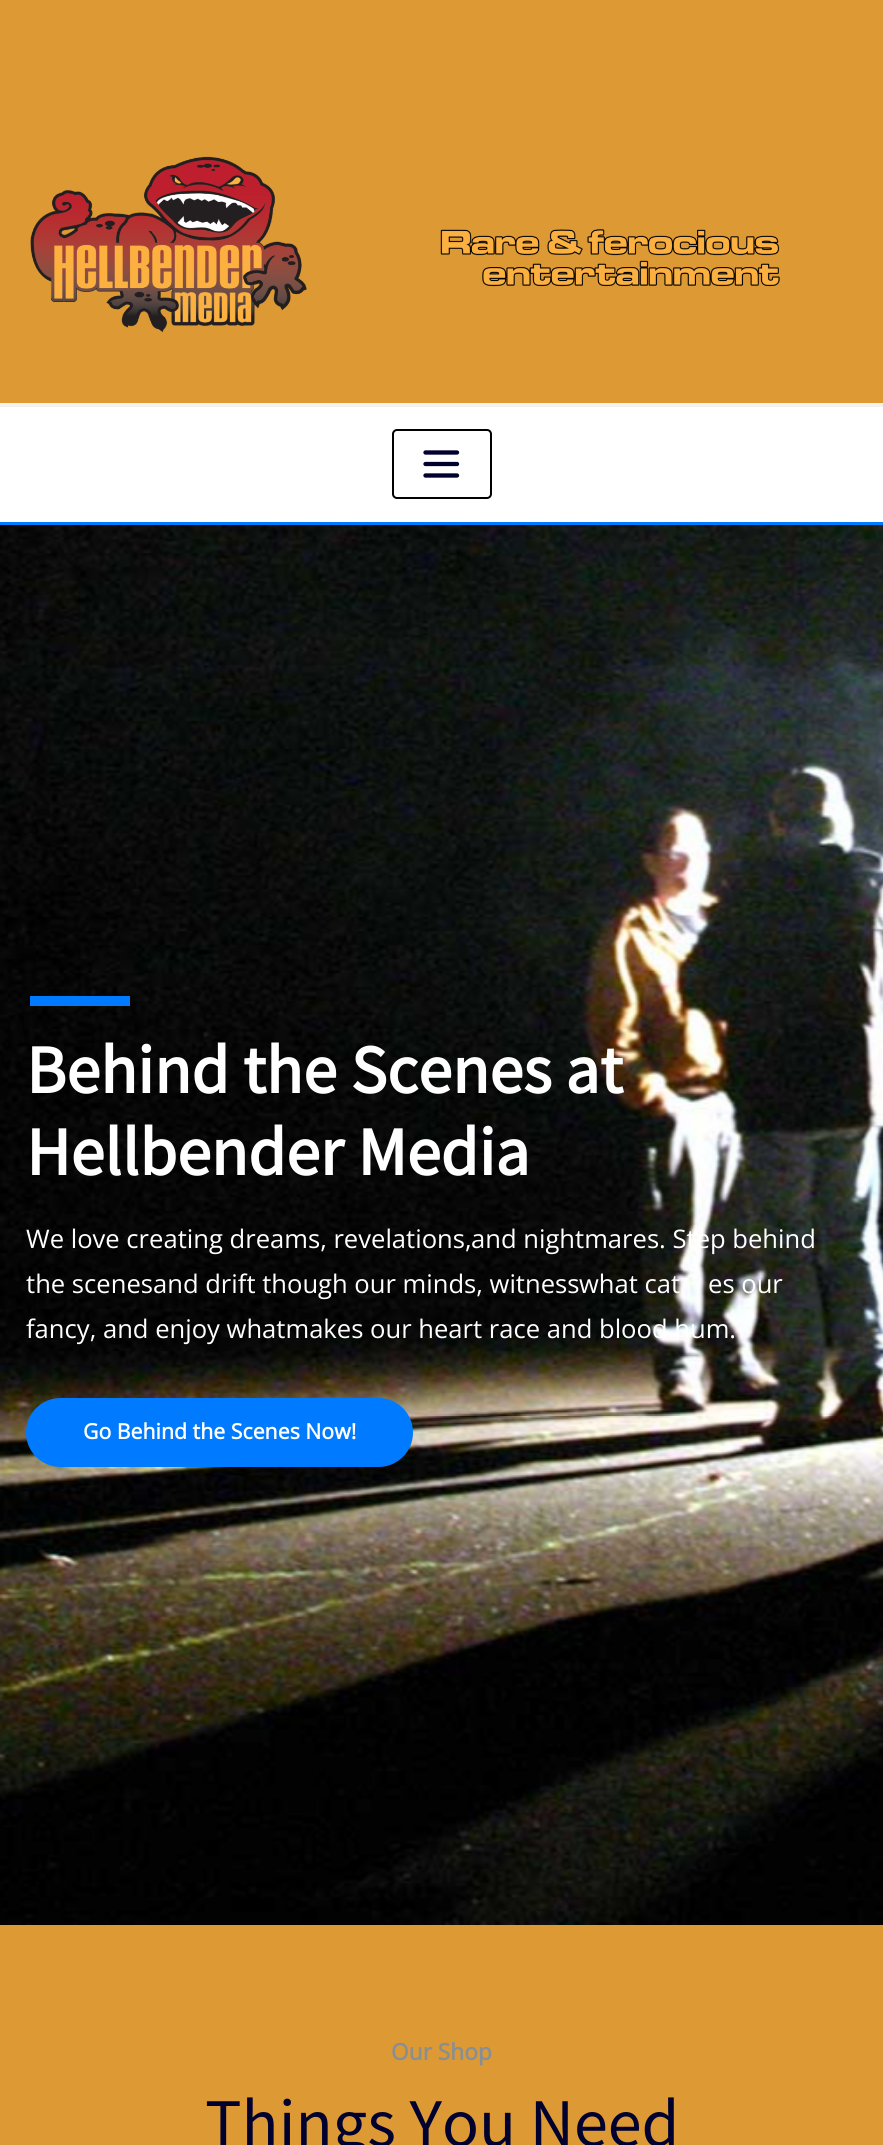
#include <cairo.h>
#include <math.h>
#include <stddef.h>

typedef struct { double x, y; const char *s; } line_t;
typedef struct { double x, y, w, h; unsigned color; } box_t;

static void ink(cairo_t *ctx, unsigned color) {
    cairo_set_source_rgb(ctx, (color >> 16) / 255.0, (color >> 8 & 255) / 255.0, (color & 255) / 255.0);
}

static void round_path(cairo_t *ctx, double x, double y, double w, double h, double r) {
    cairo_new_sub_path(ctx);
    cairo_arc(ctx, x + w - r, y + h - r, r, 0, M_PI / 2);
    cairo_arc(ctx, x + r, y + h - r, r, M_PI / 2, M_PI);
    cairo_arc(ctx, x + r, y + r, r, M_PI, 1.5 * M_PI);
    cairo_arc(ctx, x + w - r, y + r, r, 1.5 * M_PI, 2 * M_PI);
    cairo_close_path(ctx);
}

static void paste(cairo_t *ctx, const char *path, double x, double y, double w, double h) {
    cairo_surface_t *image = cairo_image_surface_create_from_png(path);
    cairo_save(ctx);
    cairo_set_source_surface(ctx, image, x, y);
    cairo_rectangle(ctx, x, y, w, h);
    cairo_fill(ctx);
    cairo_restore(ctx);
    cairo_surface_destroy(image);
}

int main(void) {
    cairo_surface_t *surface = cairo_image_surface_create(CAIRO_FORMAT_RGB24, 883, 2145);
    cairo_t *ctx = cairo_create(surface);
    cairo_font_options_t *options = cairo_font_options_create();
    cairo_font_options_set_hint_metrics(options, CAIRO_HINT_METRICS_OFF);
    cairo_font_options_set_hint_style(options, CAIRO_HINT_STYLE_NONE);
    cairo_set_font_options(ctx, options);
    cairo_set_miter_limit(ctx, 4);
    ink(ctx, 0xDD9933);
    cairo_paint(ctx);
    paste(ctx, "media/1.png", 30, 156, 750, 177);
    {
        static const box_t items[] = {
            {0, 407, 883, 115, 0xFFFFFF},
            {0, 403, 883, 4, 0xF3F2F1},
            {0, 522, 883, 3, 0x007BFF},
        };
        for (size_t i = 0; i < sizeof items / sizeof *items; i++) {
            ink(ctx, items[i].color);
            cairo_rectangle(ctx, items[i].x, items[i].y, items[i].w, items[i].h);
            cairo_fill(ctx);
        }
    }
    round_path(ctx, 393, 430, 98, 68, 4);
    ink(ctx, 0x000000);
    cairo_stroke(ctx);
    cairo_new_path(ctx);
    cairo_move_to(ctx, 425.5, 452.5);
    cairo_line_to(ctx, 457, 452.5);
    cairo_move_to(ctx, 425.5, 464);
    cairo_line_to(ctx, 457, 464);
    cairo_move_to(ctx, 425.5, 475.5);
    cairo_line_to(ctx, 457, 475.5);
    ink(ctx, 0x01012F);
    cairo_set_line_width(ctx, 4.3);
    cairo_set_line_cap(ctx, CAIRO_LINE_CAP_ROUND);
    cairo_stroke(ctx);
    paste(ctx, "media/2.png", 0, 525, 883, 1400);
    ink(ctx, 0x007BFF);
    cairo_rectangle(ctx, 30, 996, 100, 10);
    cairo_fill(ctx);
    cairo_select_font_face(ctx, "Source Sans Pro", CAIRO_FONT_SLANT_NORMAL, CAIRO_FONT_WEIGHT_BOLD);
    cairo_set_font_size(ctx, 68.25);
    ink(ctx, 0xFFFFFF);
    cairo_move_to(ctx, 26, 1093);
    cairo_show_text(ctx, "Behind the Scenes at");
    cairo_move_to(ctx, 26, 1175);
    cairo_show_text(ctx, "Hellbender Media");
    cairo_select_font_face(ctx, "Open Sans", CAIRO_FONT_SLANT_NORMAL, CAIRO_FONT_WEIGHT_NORMAL);
    cairo_set_font_size(ctx, 25.6);
    {
        static const line_t items[] = {
            {26, 1248, "We love creating dreams, revelations,"},
            {471, 1248, "and nightmares. Step behind"},
            {26, 1293, "the scenesand drift though our minds, witness"},
            {579, 1293, "what cat"},
            {708, 1293, "es our"},
            {26, 1338, "fancy, and enjoy whatmakes our heart race and blood hum."},
        };
        for (size_t i = 0; i < sizeof items / sizeof *items; i++) {
            cairo_move_to(ctx, items[i].x, items[i].y);
            cairo_show_text(ctx, items[i].s);
        }
    }
    ink(ctx, 0x007BFF);
    round_path(ctx, 26, 1398, 387, 69, 34.5);
    cairo_fill(ctx);
    cairo_select_font_face(ctx, "Open Sans", CAIRO_FONT_SLANT_NORMAL, CAIRO_FONT_WEIGHT_BOLD);
    cairo_set_font_size(ctx, 21.3);
    ink(ctx, 0xFFFFFF);
    cairo_move_to(ctx, 83, 1439);
    cairo_show_text(ctx, "Go Behind the Scenes Now!");
    cairo_set_font_size(ctx, 22.75);
    ink(ctx, 0x878E94);
    cairo_move_to(ctx, 391, 2060);
    cairo_show_text(ctx, "Our Shop");
    cairo_select_font_face(ctx, "Source Sans Pro", CAIRO_FONT_SLANT_NORMAL, CAIRO_FONT_WEIGHT_NORMAL);
    cairo_set_font_size(ctx, 68.25);
    ink(ctx, 0x01012F);
    cairo_move_to(ctx, 205, 2146);
    cairo_show_text(ctx, "Things You Need");
    cairo_surface_write_to_png(surface, "image.png");
    cairo_font_options_destroy(options);
    cairo_destroy(ctx);
    cairo_surface_destroy(surface);
    return 0;
}
